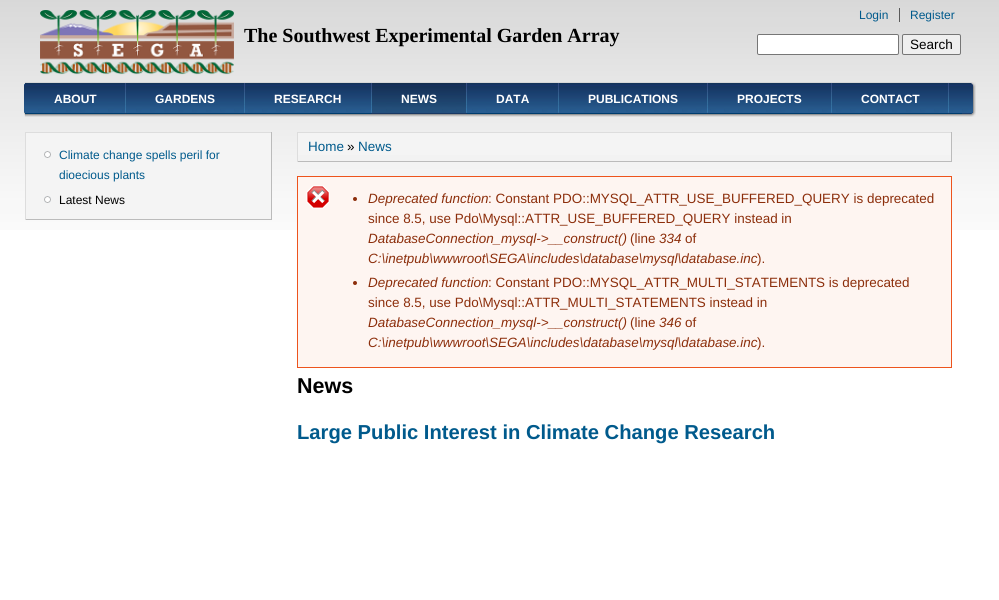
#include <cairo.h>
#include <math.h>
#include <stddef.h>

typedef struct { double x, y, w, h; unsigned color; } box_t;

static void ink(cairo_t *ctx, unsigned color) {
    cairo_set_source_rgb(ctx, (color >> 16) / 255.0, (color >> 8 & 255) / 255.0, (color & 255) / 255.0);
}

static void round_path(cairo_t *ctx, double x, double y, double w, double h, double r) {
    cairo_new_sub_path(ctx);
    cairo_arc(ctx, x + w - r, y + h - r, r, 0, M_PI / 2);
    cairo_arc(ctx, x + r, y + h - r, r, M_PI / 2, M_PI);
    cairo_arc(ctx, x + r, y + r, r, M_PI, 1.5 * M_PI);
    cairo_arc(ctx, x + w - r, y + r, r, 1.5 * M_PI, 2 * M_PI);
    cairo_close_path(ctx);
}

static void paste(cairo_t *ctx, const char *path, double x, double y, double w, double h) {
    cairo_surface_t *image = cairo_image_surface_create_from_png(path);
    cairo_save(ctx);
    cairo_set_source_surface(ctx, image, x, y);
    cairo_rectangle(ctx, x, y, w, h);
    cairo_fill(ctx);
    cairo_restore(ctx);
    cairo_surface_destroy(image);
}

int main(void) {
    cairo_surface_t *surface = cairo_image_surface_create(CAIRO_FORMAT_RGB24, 999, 600);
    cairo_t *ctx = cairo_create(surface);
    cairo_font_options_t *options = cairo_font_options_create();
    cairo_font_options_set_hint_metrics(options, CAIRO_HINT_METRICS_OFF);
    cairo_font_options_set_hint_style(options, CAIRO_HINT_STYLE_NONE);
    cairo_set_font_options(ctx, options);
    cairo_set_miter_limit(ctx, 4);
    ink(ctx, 0xFFFFFF);
    cairo_paint(ctx);
    paste(ctx, "media/1.png", 0, 0, 999, 230);
    paste(ctx, "media/2.png", 40, 10, 194, 65);
    cairo_select_font_face(ctx, "Liberation Sans", CAIRO_FONT_SLANT_NORMAL, CAIRO_FONT_WEIGHT_NORMAL);
    cairo_set_font_size(ctx, 12);
    ink(ctx, 0x005A8C);
    cairo_move_to(ctx, 859, 19);
    cairo_show_text(ctx, "Login");
    ink(ctx, 0x5A5A5A);
    cairo_rectangle(ctx, 899, 8, 1, 14);
    cairo_fill(ctx);
    ink(ctx, 0x005A8C);
    cairo_move_to(ctx, 910, 19);
    cairo_show_text(ctx, "Register");
    cairo_select_font_face(ctx, "Liberation Serif", CAIRO_FONT_SLANT_NORMAL, CAIRO_FONT_WEIGHT_BOLD);
    cairo_set_font_size(ctx, 20);
    ink(ctx, 0x000000);
    cairo_move_to(ctx, 244, 42);
    cairo_show_text(ctx, "The Southwest Experimental Garden Array");
    ink(ctx, 0xFFFFFF);
    round_path(ctx, 757.5, 34.5, 141, 20, 1.5);
    cairo_fill_preserve(ctx);
    ink(ctx, 0x767676);
    cairo_set_line_width(ctx, 1);
    cairo_stroke(ctx);
    ink(ctx, 0xEFEFEF);
    round_path(ctx, 902.5, 34.5, 58, 20, 1.5);
    cairo_fill_preserve(ctx);
    ink(ctx, 0x767676);
    cairo_stroke(ctx);
    cairo_select_font_face(ctx, "Liberation Sans", CAIRO_FONT_SLANT_NORMAL, CAIRO_FONT_WEIGHT_NORMAL);
    cairo_set_font_size(ctx, 13.5);
    ink(ctx, 0x000000);
    cairo_move_to(ctx, 910, 49);
    cairo_show_text(ctx, "Search");
    paste(ctx, "media/3.png", 25, 82, 937, 35);
    paste(ctx, "media/4.png", 24, 82, 1, 35);
    paste(ctx, "media/5.png", 125, 83, 1, 31);
    cairo_select_font_face(ctx, "Liberation Sans", CAIRO_FONT_SLANT_NORMAL, CAIRO_FONT_WEIGHT_BOLD);
    cairo_set_font_size(ctx, 12);
    ink(ctx, 0xFFFFFF);
    cairo_move_to(ctx, 54, 103);
    cairo_show_text(ctx, "ABOUT");
    paste(ctx, "media/5.png", 244, 83, 1, 31);
    cairo_move_to(ctx, 155, 103);
    cairo_show_text(ctx, "GARDENS");
    paste(ctx, "media/5.png", 371, 83, 1, 31);
    cairo_move_to(ctx, 274, 103);
    cairo_show_text(ctx, "RESEARCH");
    paste(ctx, "media/5.png", 466, 83, 1, 31);
    paste(ctx, "media/6.png", 372, 83, 94, 31);
    cairo_move_to(ctx, 401, 103);
    cairo_show_text(ctx, "NEWS");
    paste(ctx, "media/5.png", 558, 83, 1, 31);
    cairo_move_to(ctx, 496, 103);
    cairo_show_text(ctx, "DATA");
    paste(ctx, "media/5.png", 707, 83, 1, 31);
    cairo_move_to(ctx, 588, 103);
    cairo_show_text(ctx, "PUBLICATIONS");
    paste(ctx, "media/5.png", 831, 83, 1, 31);
    cairo_move_to(ctx, 737, 103);
    cairo_show_text(ctx, "PROJECTS");
    paste(ctx, "media/5.png", 948, 83, 1, 31);
    cairo_move_to(ctx, 861, 103);
    cairo_show_text(ctx, "CONTACT");
    paste(ctx, "media/7.png", 962, 82, 14, 35);
    {
        static const box_t items[] = {
            {26, 133, 245, 86, 0xF4F4F4},
            {25, 132, 247, 1, 0xDDDDDD},
            {271, 132, 1, 88, 0xBBBBBB},
            {25, 219, 247, 1, 0xBBBBBB},
            {25, 132, 1, 88, 0xDDDDDD},
        };
        for (size_t i = 0; i < sizeof items / sizeof *items; i++) {
            ink(ctx, items[i].color);
            cairo_rectangle(ctx, items[i].x, items[i].y, items[i].w, items[i].h);
            cairo_fill(ctx);
        }
    }
    paste(ctx, "media/8.png", 44, 151, 7, 7);
    cairo_select_font_face(ctx, "Liberation Sans", CAIRO_FONT_SLANT_NORMAL, CAIRO_FONT_WEIGHT_NORMAL);
    ink(ctx, 0x005A8C);
    cairo_move_to(ctx, 59, 159);
    cairo_show_text(ctx, "Climate change spells peril for");
    cairo_move_to(ctx, 59, 179);
    cairo_show_text(ctx, "dioecious plants");
    paste(ctx, "media/8.png", 44, 196, 7, 7);
    ink(ctx, 0x000000);
    cairo_move_to(ctx, 59, 204);
    cairo_show_text(ctx, "Latest News");
    {
        static const box_t items[] = {
            {298, 133, 653, 22, 0xF4F4F4},
            {297, 132, 655, 1, 0xDDDDDD},
            {951, 132, 1, 30, 0xBBBBBB},
            {297, 161, 655, 1, 0xBBBBBB},
            {297, 132, 1, 30, 0xDDDDDD},
        };
        for (size_t i = 0; i < sizeof items / sizeof *items; i++) {
            ink(ctx, items[i].color);
            cairo_rectangle(ctx, items[i].x, items[i].y, items[i].w, items[i].h);
            cairo_fill(ctx);
        }
    }
    cairo_set_font_size(ctx, 13.45);
    ink(ctx, 0x005A8C);
    cairo_move_to(ctx, 308, 151);
    cairo_show_text(ctx, "Home");
    ink(ctx, 0x000000);
    cairo_move_to(ctx, 347, 151);
    cairo_show_text(ctx, "»");
    ink(ctx, 0x005A8C);
    cairo_move_to(ctx, 358, 151);
    cairo_show_text(ctx, "News");
    ink(ctx, 0xFEF5F1);
    cairo_rectangle(ctx, 298, 177, 653, 190);
    cairo_fill(ctx);
    paste(ctx, "media/9.png", 306, 185, 24, 24);
    cairo_rectangle(ctx, 297.5, 176.5, 654, 191);
    ink(ctx, 0xED541D);
    cairo_stroke(ctx);
    ink(ctx, 0x8C2E0B);
    cairo_arc(ctx, 355, 199, 2, 0, 2 * M_PI);
    cairo_fill(ctx);
    cairo_select_font_face(ctx, "Liberation Sans", CAIRO_FONT_SLANT_ITALIC, CAIRO_FONT_WEIGHT_NORMAL);
    cairo_move_to(ctx, 368, 203);
    cairo_show_text(ctx, "Deprecated function");
    cairo_select_font_face(ctx, "Liberation Sans", CAIRO_FONT_SLANT_NORMAL, CAIRO_FONT_WEIGHT_NORMAL);
    cairo_move_to(ctx, 488, 203);
    cairo_show_text(ctx, ": Constant PDO::MYSQL_ATTR_USE_BUFFERED_QUERY is deprecated");
    cairo_move_to(ctx, 368, 223);
    cairo_show_text(ctx, "since 8.5, use Pdo\\Mysql::ATTR_USE_BUFFERED_QUERY instead in");
    cairo_select_font_face(ctx, "Liberation Sans", CAIRO_FONT_SLANT_ITALIC, CAIRO_FONT_WEIGHT_NORMAL);
    cairo_move_to(ctx, 368, 243);
    cairo_show_text(ctx, "DatabaseConnection_mysql->__construct()");
    cairo_select_font_face(ctx, "Liberation Sans", CAIRO_FONT_SLANT_NORMAL, CAIRO_FONT_WEIGHT_NORMAL);
    cairo_move_to(ctx, 630, 243);
    cairo_show_text(ctx, "(line");
    cairo_select_font_face(ctx, "Liberation Sans", CAIRO_FONT_SLANT_ITALIC, CAIRO_FONT_WEIGHT_NORMAL);
    cairo_move_to(ctx, 659, 243);
    cairo_show_text(ctx, "334");
    cairo_select_font_face(ctx, "Liberation Sans", CAIRO_FONT_SLANT_NORMAL, CAIRO_FONT_WEIGHT_NORMAL);
    cairo_move_to(ctx, 685, 243);
    cairo_show_text(ctx, "of");
    cairo_select_font_face(ctx, "Liberation Sans", CAIRO_FONT_SLANT_ITALIC, CAIRO_FONT_WEIGHT_NORMAL);
    cairo_move_to(ctx, 368, 263);
    cairo_show_text(ctx, "C:\\inetpub\\wwwroot\\SEGA\\includes\\database\\mysql\\database.inc");
    cairo_select_font_face(ctx, "Liberation Sans", CAIRO_FONT_SLANT_NORMAL, CAIRO_FONT_WEIGHT_NORMAL);
    cairo_move_to(ctx, 757, 263);
    cairo_show_text(ctx, ").");
    cairo_new_path(ctx);
    cairo_arc(ctx, 355, 283, 2, 0, 2 * M_PI);
    cairo_fill(ctx);
    cairo_select_font_face(ctx, "Liberation Sans", CAIRO_FONT_SLANT_ITALIC, CAIRO_FONT_WEIGHT_NORMAL);
    cairo_move_to(ctx, 368, 287);
    cairo_show_text(ctx, "Deprecated function");
    cairo_select_font_face(ctx, "Liberation Sans", CAIRO_FONT_SLANT_NORMAL, CAIRO_FONT_WEIGHT_NORMAL);
    cairo_move_to(ctx, 488, 287);
    cairo_show_text(ctx, ": Constant PDO::MYSQL_ATTR_MULTI_STATEMENTS is deprecated");
    cairo_move_to(ctx, 368, 307);
    cairo_show_text(ctx, "since 8.5, use Pdo\\Mysql::ATTR_MULTI_STATEMENTS instead in");
    cairo_select_font_face(ctx, "Liberation Sans", CAIRO_FONT_SLANT_ITALIC, CAIRO_FONT_WEIGHT_NORMAL);
    cairo_move_to(ctx, 368, 327);
    cairo_show_text(ctx, "DatabaseConnection_mysql->__construct()");
    cairo_select_font_face(ctx, "Liberation Sans", CAIRO_FONT_SLANT_NORMAL, CAIRO_FONT_WEIGHT_NORMAL);
    cairo_move_to(ctx, 630, 327);
    cairo_show_text(ctx, "(line");
    cairo_select_font_face(ctx, "Liberation Sans", CAIRO_FONT_SLANT_ITALIC, CAIRO_FONT_WEIGHT_NORMAL);
    cairo_move_to(ctx, 659, 327);
    cairo_show_text(ctx, "346");
    cairo_select_font_face(ctx, "Liberation Sans", CAIRO_FONT_SLANT_NORMAL, CAIRO_FONT_WEIGHT_NORMAL);
    cairo_move_to(ctx, 685, 327);
    cairo_show_text(ctx, "of");
    cairo_select_font_face(ctx, "Liberation Sans", CAIRO_FONT_SLANT_ITALIC, CAIRO_FONT_WEIGHT_NORMAL);
    cairo_move_to(ctx, 368, 347);
    cairo_show_text(ctx, "C:\\inetpub\\wwwroot\\SEGA\\includes\\database\\mysql\\database.inc");
    cairo_select_font_face(ctx, "Liberation Sans", CAIRO_FONT_SLANT_NORMAL, CAIRO_FONT_WEIGHT_NORMAL);
    cairo_move_to(ctx, 757, 347);
    cairo_show_text(ctx, ").");
    cairo_select_font_face(ctx, "Liberation Sans", CAIRO_FONT_SLANT_NORMAL, CAIRO_FONT_WEIGHT_BOLD);
    cairo_set_font_size(ctx, 21.5);
    ink(ctx, 0x000000);
    cairo_move_to(ctx, 297, 393);
    cairo_show_text(ctx, "News");
    cairo_set_font_size(ctx, 20.2);
    ink(ctx, 0x005A8C);
    cairo_move_to(ctx, 297, 439);
    cairo_show_text(ctx, "Large Public Interest in Climate Change Research");
    cairo_surface_write_to_png(surface, "image.png");
    cairo_font_options_destroy(options);
    cairo_destroy(ctx);
    cairo_surface_destroy(surface);
    return 0;
}
